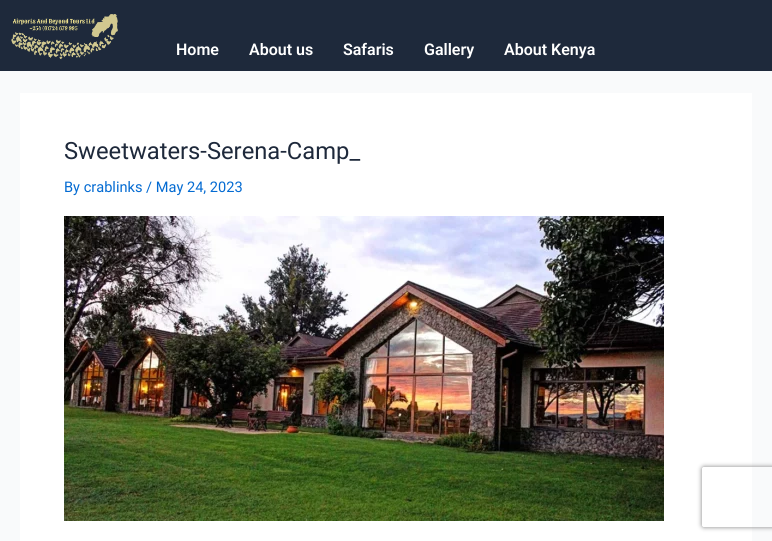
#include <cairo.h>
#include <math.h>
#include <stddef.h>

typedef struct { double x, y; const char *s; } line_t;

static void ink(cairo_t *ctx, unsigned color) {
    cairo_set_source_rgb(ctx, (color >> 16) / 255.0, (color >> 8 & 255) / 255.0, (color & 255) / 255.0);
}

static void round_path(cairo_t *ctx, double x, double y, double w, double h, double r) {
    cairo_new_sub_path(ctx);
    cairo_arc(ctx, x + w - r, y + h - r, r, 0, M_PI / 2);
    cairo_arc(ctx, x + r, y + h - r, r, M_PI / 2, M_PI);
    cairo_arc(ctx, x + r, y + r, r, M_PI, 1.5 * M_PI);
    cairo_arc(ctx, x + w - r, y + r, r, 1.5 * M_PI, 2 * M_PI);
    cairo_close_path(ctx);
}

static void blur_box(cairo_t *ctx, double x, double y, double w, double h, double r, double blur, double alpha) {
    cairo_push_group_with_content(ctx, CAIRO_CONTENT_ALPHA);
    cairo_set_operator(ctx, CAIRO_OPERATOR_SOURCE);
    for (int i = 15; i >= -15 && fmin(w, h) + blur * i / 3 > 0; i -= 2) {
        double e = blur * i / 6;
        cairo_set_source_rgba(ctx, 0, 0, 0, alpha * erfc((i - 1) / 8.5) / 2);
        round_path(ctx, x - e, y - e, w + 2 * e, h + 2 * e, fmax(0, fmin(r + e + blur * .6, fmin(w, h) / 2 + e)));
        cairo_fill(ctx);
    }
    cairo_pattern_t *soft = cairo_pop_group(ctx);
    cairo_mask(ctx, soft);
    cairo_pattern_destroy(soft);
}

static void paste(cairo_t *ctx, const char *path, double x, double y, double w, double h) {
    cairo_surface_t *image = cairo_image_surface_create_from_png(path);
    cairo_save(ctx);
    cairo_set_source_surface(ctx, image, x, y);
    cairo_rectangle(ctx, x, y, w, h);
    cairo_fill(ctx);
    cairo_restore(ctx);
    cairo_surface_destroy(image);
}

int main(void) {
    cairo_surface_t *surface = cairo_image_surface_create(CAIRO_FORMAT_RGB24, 772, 541);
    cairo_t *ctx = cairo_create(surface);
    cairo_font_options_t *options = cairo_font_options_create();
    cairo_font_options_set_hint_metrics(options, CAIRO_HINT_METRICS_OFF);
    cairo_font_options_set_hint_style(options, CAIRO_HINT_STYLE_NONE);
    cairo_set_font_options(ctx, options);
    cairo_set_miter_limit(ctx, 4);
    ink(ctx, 0xF9FAFB);
    cairo_paint(ctx);
    ink(ctx, 0x1E293B);
    cairo_rectangle(ctx, 0, 0, 772, 71);
    cairo_fill(ctx);
    paste(ctx, "media/1.png", 11, 14, 107, 46);
    cairo_select_font_face(ctx, "Roboto SemiBold", CAIRO_FONT_SLANT_NORMAL, CAIRO_FONT_WEIGHT_NORMAL);
    cairo_set_font_size(ctx, 16);
    ink(ctx, 0xFFFFFF);
    {
        static const line_t items[] = {
            {176, 55, "Home"},
            {249, 55, "About us"},
            {343, 55, "Safaris"},
            {424, 55, "Gallery"},
            {504, 55, "About Kenya"},
        };
        for (size_t i = 0; i < sizeof items / sizeof *items; i++) {
            cairo_move_to(ctx, items[i].x, items[i].y);
            cairo_show_text(ctx, items[i].s);
        }
    }
    cairo_rectangle(ctx, 20, 93, 732, 448);
    cairo_fill(ctx);
    cairo_select_font_face(ctx, "Roboto", CAIRO_FONT_SLANT_NORMAL, CAIRO_FONT_WEIGHT_NORMAL);
    cairo_set_font_size(ctx, 23.75);
    ink(ctx, 0x1E293B);
    cairo_move_to(ctx, 64, 159);
    cairo_show_text(ctx, "Sweetwaters-Serena-Camp_");
    cairo_set_font_size(ctx, 14.6);
    ink(ctx, 0x046BD2);
    cairo_move_to(ctx, 64, 192);
    cairo_show_text(ctx, "By crablinks / May 24, 2023");
    paste(ctx, "media/2.png", 64, 216, 600, 305);
    cairo_save(ctx);
    cairo_set_fill_rule(ctx, CAIRO_FILL_RULE_EVEN_ODD);
    cairo_new_path(ctx);
    cairo_move_to(ctx, 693, 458);
    cairo_line_to(ctx, 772, 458);
    cairo_line_to(ctx, 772, 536);
    cairo_line_to(ctx, 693, 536);
    cairo_close_path(ctx);
    cairo_move_to(ctx, 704, 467);
    cairo_line_to(ctx, 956, 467);
    cairo_curve_to(ctx, 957, 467, 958, 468, 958, 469);
    cairo_line_to(ctx, 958, 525);
    cairo_curve_to(ctx, 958, 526, 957, 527, 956, 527);
    cairo_line_to(ctx, 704, 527);
    cairo_curve_to(ctx, 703, 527, 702, 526, 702, 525);
    cairo_line_to(ctx, 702, 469);
    cairo_curve_to(ctx, 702, 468, 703, 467, 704, 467);
    cairo_close_path(ctx);
    cairo_clip(ctx);
    ink(ctx, 0x808080);
    blur_box(ctx, 702, 467, 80, 60, 2, 2.5, 1);
    cairo_restore(ctx);
    cairo_surface_write_to_png(surface, "image.png");
    cairo_font_options_destroy(options);
    cairo_destroy(ctx);
    cairo_surface_destroy(surface);
    return 0;
}
